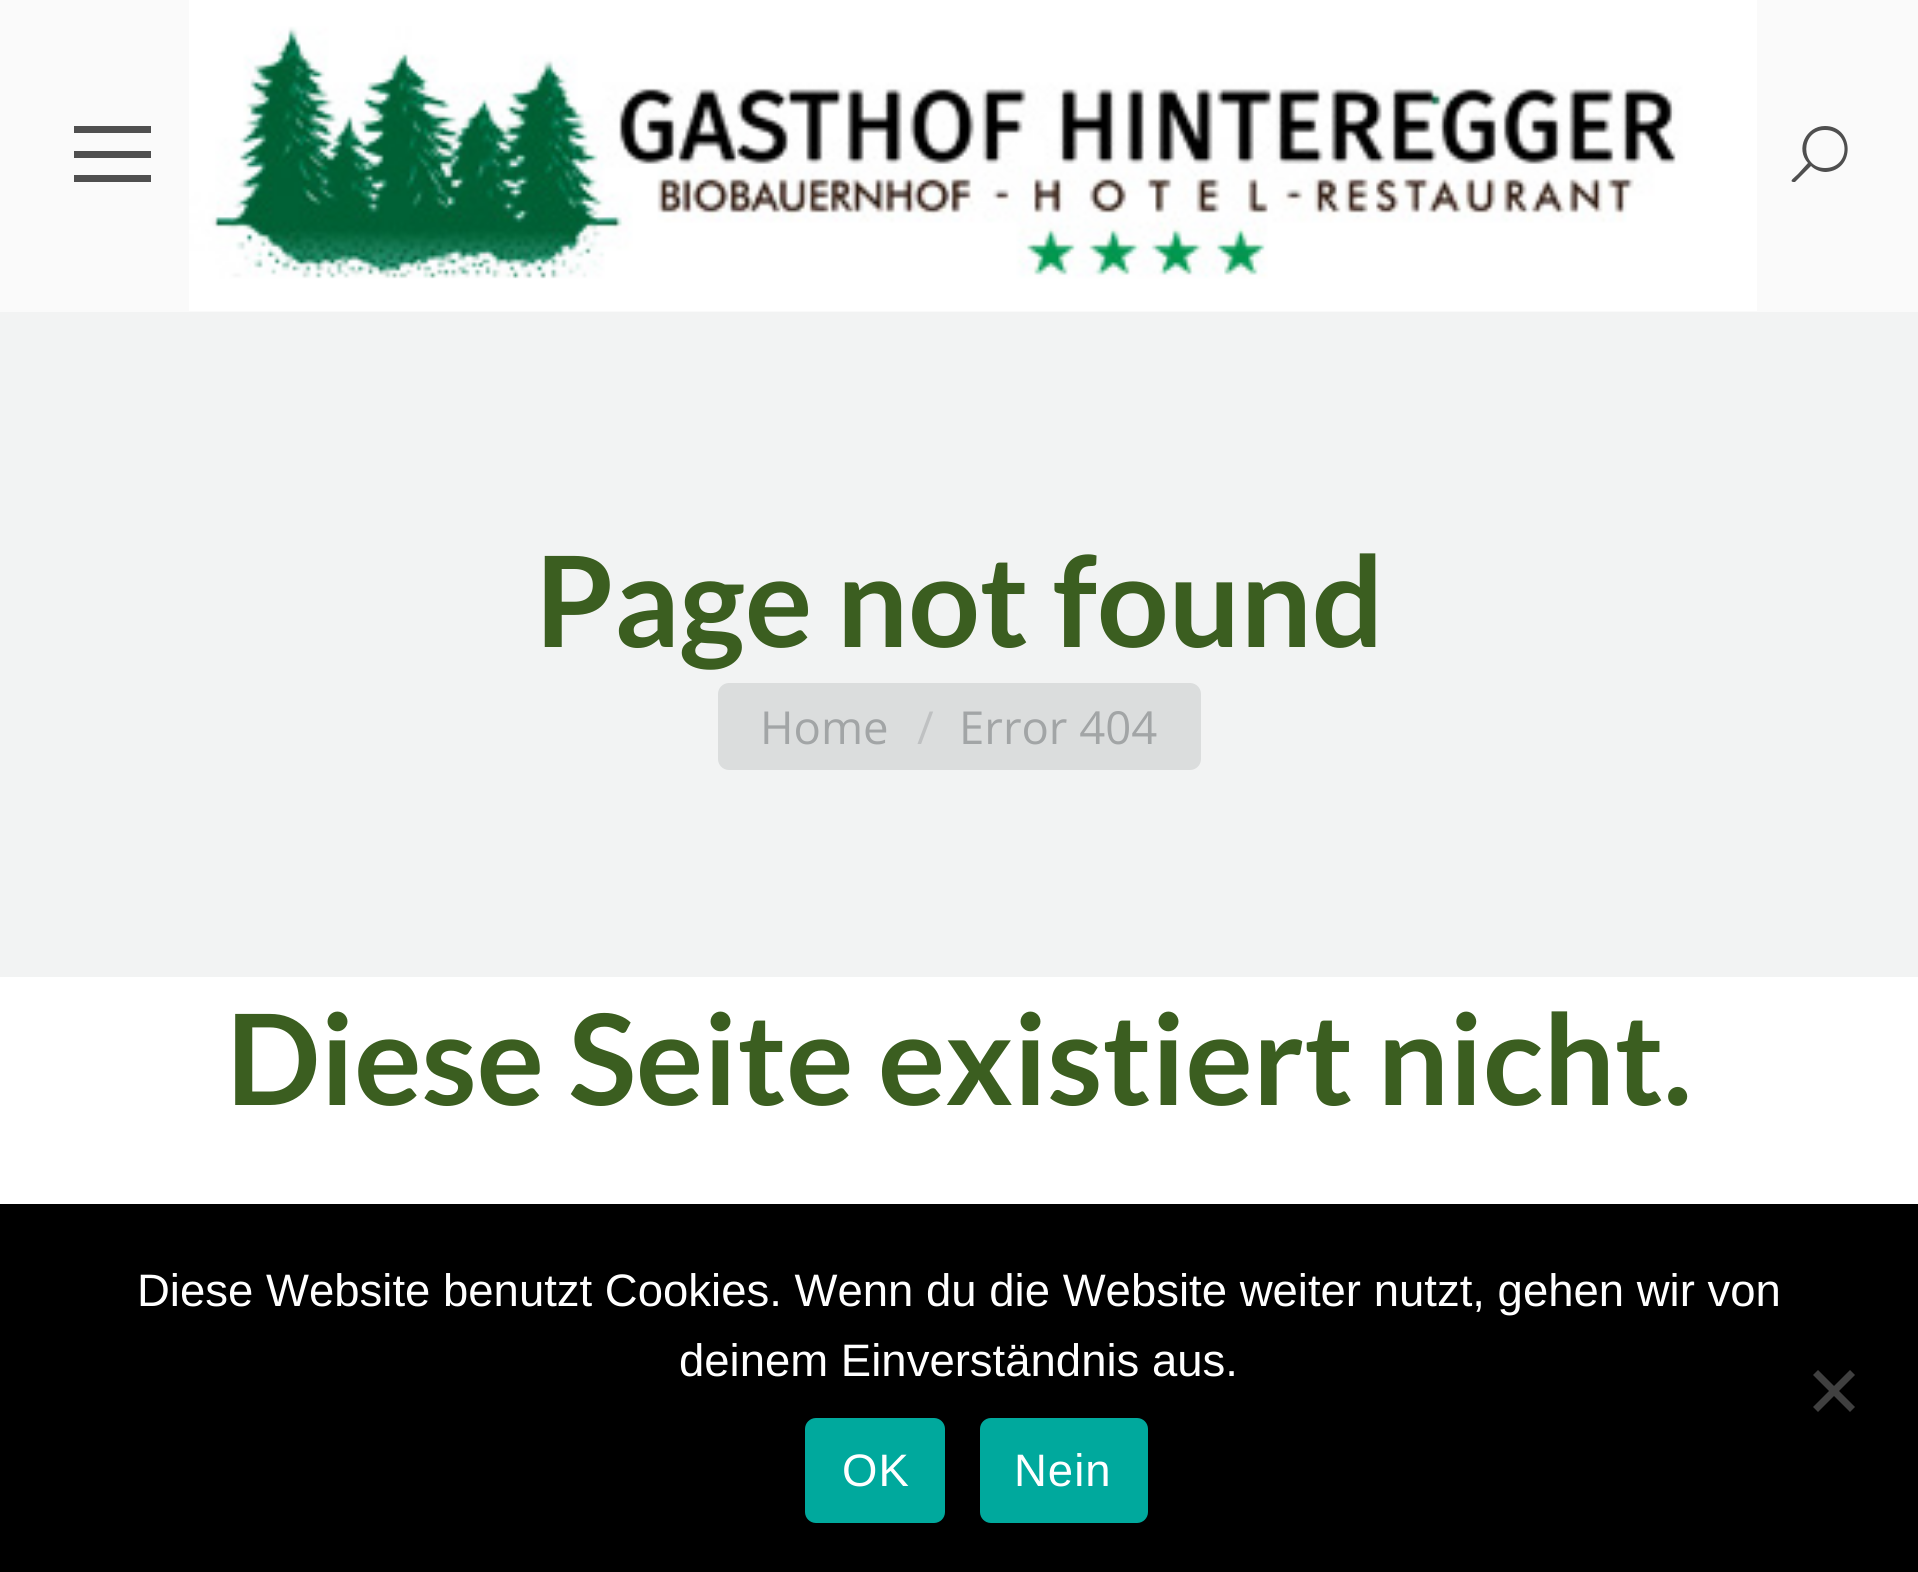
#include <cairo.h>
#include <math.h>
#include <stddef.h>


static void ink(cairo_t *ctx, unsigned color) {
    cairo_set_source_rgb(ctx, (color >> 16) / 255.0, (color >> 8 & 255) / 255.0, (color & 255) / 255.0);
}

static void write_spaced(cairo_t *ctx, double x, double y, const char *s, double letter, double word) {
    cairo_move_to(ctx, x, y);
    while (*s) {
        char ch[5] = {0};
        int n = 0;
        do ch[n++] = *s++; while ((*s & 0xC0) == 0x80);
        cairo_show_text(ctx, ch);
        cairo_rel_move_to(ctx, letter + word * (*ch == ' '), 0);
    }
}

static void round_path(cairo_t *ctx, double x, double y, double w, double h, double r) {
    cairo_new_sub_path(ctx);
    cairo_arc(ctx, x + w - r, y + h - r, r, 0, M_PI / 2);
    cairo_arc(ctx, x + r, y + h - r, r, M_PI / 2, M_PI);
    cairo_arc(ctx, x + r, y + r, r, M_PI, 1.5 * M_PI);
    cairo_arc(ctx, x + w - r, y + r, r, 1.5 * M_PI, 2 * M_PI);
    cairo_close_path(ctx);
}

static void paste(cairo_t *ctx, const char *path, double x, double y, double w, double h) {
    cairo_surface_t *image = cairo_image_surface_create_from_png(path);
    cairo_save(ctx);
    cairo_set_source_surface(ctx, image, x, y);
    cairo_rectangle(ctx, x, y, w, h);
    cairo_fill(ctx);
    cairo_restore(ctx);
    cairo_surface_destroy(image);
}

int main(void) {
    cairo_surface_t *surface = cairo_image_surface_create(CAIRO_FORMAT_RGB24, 1918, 1572);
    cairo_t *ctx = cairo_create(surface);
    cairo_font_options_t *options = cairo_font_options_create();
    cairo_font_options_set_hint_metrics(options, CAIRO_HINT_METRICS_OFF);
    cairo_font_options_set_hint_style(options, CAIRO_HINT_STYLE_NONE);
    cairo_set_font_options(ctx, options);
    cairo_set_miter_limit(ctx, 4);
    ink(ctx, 0xFFFFFF);
    cairo_paint(ctx);
    cairo_set_source_rgba(ctx, 0.957, 0.957, 0.957, 0.4);
    cairo_rectangle(ctx, 0, 0, 1918, 312);
    cairo_fill(ctx);
    ink(ctx, 0x4F4F4F);
    cairo_rectangle(ctx, 74, 126, 77, 7);
    cairo_fill(ctx);
    cairo_rectangle(ctx, 74, 151, 77, 7);
    cairo_fill(ctx);
    cairo_rectangle(ctx, 74, 175, 77, 7);
    cairo_fill(ctx);
    paste(ctx, "media/1.png", 189, 0, 1568, 311);
    cairo_new_path(ctx);
    cairo_move_to(ctx, 1825, 126);
    cairo_curve_to(ctx, 1806, 126, 1795, 149, 1808, 163);
    cairo_line_to(ctx, 1798, 174);
    cairo_curve_to(ctx, 1794, 178, 1789, 181, 1793, 182);
    cairo_line_to(ctx, 1795, 182);
    cairo_line_to(ctx, 1811, 166);
    cairo_curve_to(ctx, 1815, 170, 1821, 172, 1826, 172);
    cairo_curve_to(ctx, 1856, 170, 1854, 126, 1825, 126);
    cairo_close_path(ctx);
    cairo_move_to(ctx, 1825, 168);
    cairo_curve_to(ctx, 1800, 168, 1800, 130, 1825, 130);
    cairo_curve_to(ctx, 1851, 130, 1851, 168, 1825, 168);
    cairo_close_path(ctx);
    cairo_fill(ctx);
    ink(ctx, 0xF2F3F3);
    cairo_rectangle(ctx, 0, 312, 1918, 665);
    cairo_fill(ctx);
    cairo_select_font_face(ctx, "Lato", CAIRO_FONT_SLANT_NORMAL, CAIRO_FONT_WEIGHT_BOLD);
    cairo_set_font_size(ctx, 126);
    ink(ctx, 0x3B5E20);
    cairo_move_to(ctx, 535, 647);
    cairo_show_text(ctx, "Page not found");
    ink(ctx, 0xDBDDDD);
    round_path(ctx, 718, 683, 483, 87, 11);
    cairo_fill(ctx);
    cairo_select_font_face(ctx, "Open Sans", CAIRO_FONT_SLANT_NORMAL, CAIRO_FONT_WEIGHT_NORMAL);
    cairo_set_font_size(ctx, 45.5);
    ink(ctx, 0xA2A5A6);
    cairo_move_to(ctx, 760, 744);
    cairo_show_text(ctx, "Home");
    ink(ctx, 0xBFC1C2);
    cairo_move_to(ctx, 917, 744);
    cairo_show_text(ctx, "/");
    ink(ctx, 0xA2A5A6);
    cairo_move_to(ctx, 959, 744);
    cairo_show_text(ctx, "Error 404");
    cairo_select_font_face(ctx, "Lato", CAIRO_FONT_SLANT_NORMAL, CAIRO_FONT_WEIGHT_BOLD);
    cairo_set_font_size(ctx, 126);
    ink(ctx, 0x3B5E20);
    cairo_move_to(ctx, 226, 1105);
    cairo_show_text(ctx, "Diese Seite existiert nicht.");
    ink(ctx, 0x000000);
    cairo_rectangle(ctx, 0, 1204, 1918, 368);
    cairo_fill(ctx);
    cairo_select_font_face(ctx, "Liberation Sans", CAIRO_FONT_SLANT_NORMAL, CAIRO_FONT_WEIGHT_NORMAL);
    cairo_set_font_size(ctx, 45.5);
    ink(ctx, 0xFFFFFF);
    cairo_move_to(ctx, 137, 1306);
    cairo_show_text(ctx, "Diese Website benutzt Cookies. Wenn du die Website weiter nutzt, gehen wir von");
    cairo_move_to(ctx, 679, 1376);
    cairo_show_text(ctx, "deinem Einverständnis aus.");
    ink(ctx, 0x404040);
    cairo_new_path(ctx);
    cairo_move_to(ctx, 1850, 1370);
    cairo_line_to(ctx, 1855, 1375);
    cairo_line_to(ctx, 1818, 1412);
    cairo_line_to(ctx, 1813, 1407);
    cairo_close_path(ctx);
    cairo_fill(ctx);
    cairo_new_path(ctx);
    cairo_move_to(ctx, 1813, 1375);
    cairo_line_to(ctx, 1818, 1370);
    cairo_line_to(ctx, 1855, 1407);
    cairo_line_to(ctx, 1850, 1412);
    cairo_close_path(ctx);
    cairo_fill(ctx);
    ink(ctx, 0x00A99D);
    round_path(ctx, 805, 1418, 140, 105, 11);
    cairo_fill(ctx);
    ink(ctx, 0xFFFFFF);
    write_spaced(ctx, 842, 1486, "OK", 1, 0);
    ink(ctx, 0x00A99D);
    round_path(ctx, 980, 1418, 168, 105, 11);
    cairo_fill(ctx);
    ink(ctx, 0xFFFFFF);
    write_spaced(ctx, 1014, 1486, "Nein", 1, 0);
    cairo_surface_write_to_png(surface, "image.png");
    cairo_font_options_destroy(options);
    cairo_destroy(ctx);
    cairo_surface_destroy(surface);
    return 0;
}
